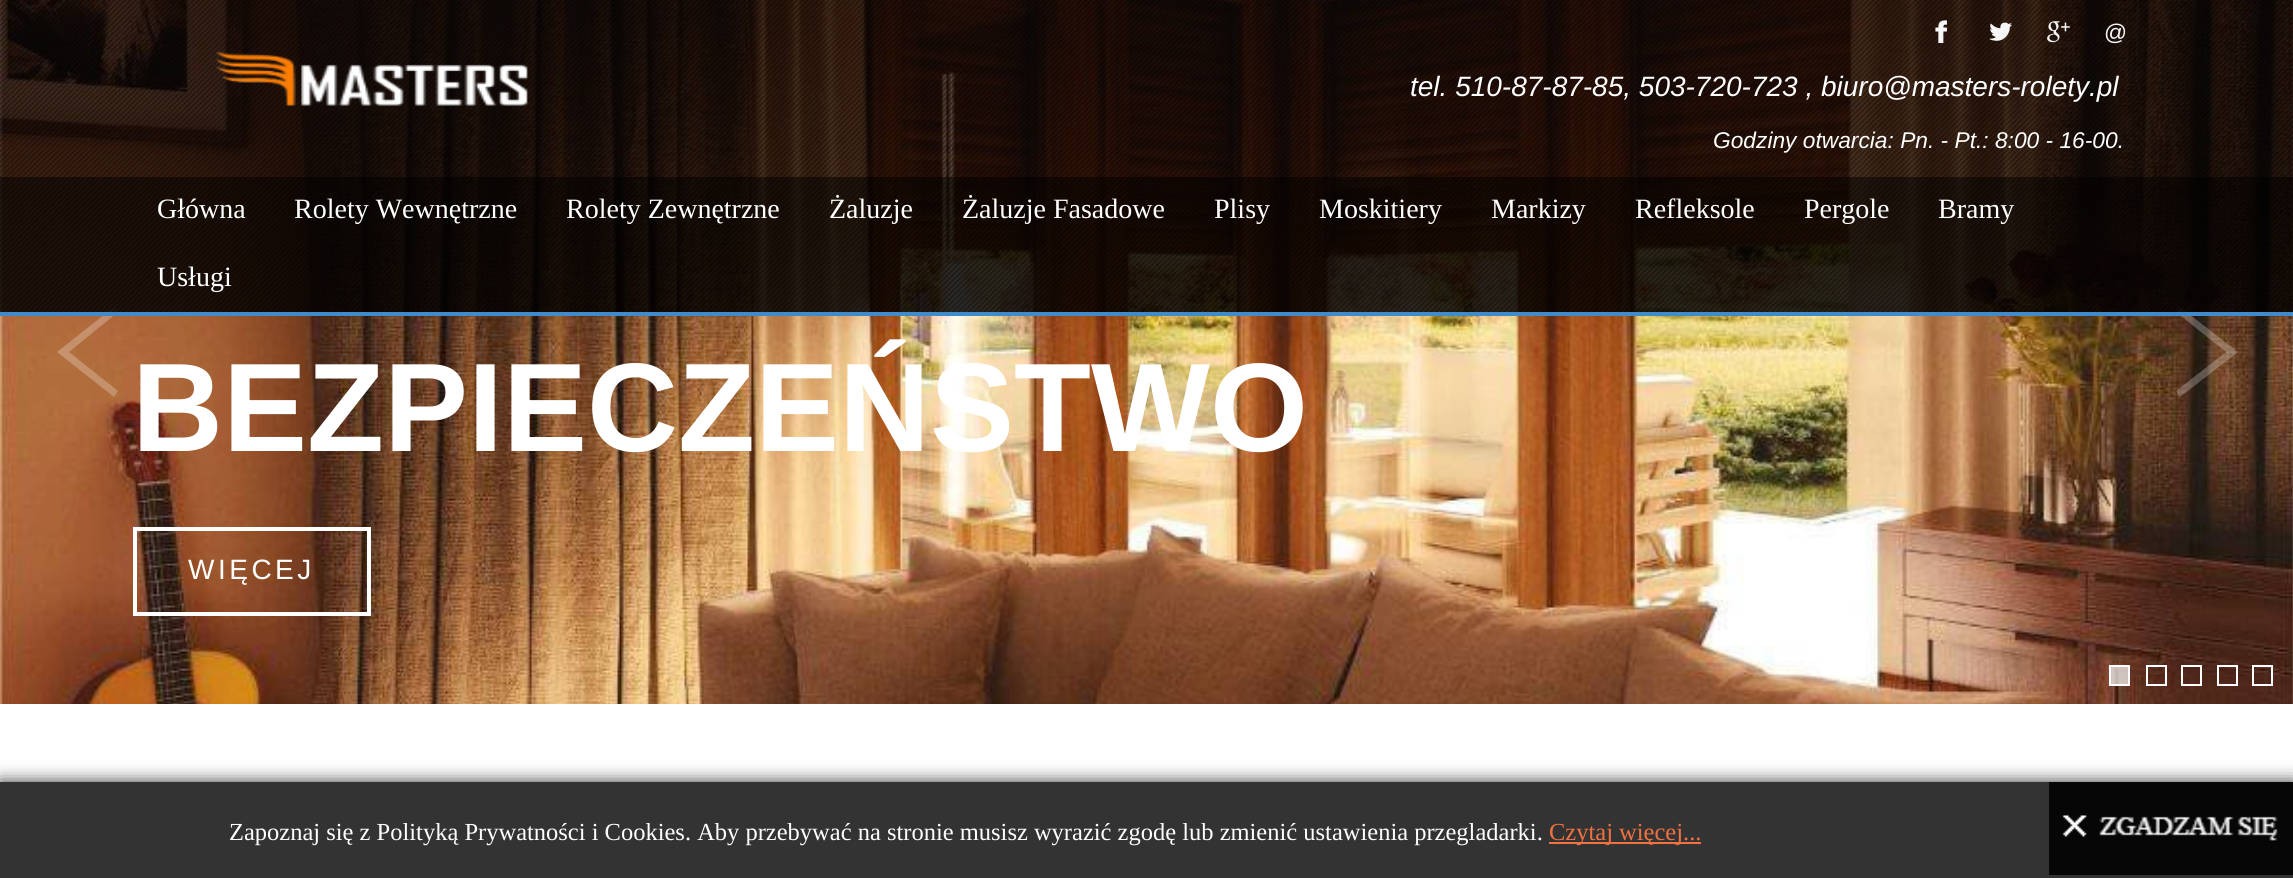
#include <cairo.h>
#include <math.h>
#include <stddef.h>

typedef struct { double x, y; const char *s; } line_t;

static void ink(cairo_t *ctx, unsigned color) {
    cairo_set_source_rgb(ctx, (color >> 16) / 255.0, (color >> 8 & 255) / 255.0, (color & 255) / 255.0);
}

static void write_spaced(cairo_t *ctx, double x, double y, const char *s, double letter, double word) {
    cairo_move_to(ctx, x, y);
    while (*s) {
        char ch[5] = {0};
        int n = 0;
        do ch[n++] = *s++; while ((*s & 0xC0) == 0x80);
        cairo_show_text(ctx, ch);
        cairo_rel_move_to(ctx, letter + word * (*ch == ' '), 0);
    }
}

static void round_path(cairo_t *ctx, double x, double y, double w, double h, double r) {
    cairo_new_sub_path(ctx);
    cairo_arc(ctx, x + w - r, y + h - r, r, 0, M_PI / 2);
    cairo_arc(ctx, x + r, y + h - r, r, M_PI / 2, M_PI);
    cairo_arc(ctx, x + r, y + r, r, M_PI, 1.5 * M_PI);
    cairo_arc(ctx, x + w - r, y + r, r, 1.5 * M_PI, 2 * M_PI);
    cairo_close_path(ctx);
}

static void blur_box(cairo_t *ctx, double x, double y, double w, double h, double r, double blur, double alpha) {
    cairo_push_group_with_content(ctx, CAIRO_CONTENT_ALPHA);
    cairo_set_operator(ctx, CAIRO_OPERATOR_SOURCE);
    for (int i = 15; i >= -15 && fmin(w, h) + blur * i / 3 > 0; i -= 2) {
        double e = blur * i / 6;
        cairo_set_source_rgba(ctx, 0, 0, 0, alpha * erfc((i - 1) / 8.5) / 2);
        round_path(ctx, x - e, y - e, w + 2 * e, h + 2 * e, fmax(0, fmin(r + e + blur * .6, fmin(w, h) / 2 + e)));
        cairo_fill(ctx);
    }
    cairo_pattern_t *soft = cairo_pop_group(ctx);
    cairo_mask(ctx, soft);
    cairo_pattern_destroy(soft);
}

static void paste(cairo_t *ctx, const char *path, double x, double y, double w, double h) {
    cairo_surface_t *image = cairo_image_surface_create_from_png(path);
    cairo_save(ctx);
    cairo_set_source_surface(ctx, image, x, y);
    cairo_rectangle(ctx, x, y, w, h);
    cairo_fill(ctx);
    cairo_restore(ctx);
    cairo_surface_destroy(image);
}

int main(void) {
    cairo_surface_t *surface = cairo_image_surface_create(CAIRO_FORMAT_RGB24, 2293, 878);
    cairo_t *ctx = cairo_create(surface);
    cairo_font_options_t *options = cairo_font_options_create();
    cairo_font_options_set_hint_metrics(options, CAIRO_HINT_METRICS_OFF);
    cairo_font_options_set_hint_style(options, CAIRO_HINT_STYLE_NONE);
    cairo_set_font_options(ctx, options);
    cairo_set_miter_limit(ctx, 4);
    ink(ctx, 0xFFFFFF);
    cairo_paint(ctx);
    paste(ctx, "media/6.png", 0, 0, 2293, 704);
    cairo_set_source_rgba(ctx, 1, 1, 1, 0.25);
    cairo_new_path(ctx);
    cairo_move_to(ctx, 57, 352);
    cairo_line_to(ctx, 114, 307);
    cairo_line_to(ctx, 118, 312);
    cairo_line_to(ctx, 69, 352);
    cairo_line_to(ctx, 118, 391);
    cairo_line_to(ctx, 114, 397);
    cairo_close_path(ctx);
    cairo_fill(ctx);
    cairo_new_path(ctx);
    cairo_move_to(ctx, 2238, 352);
    cairo_line_to(ctx, 2180, 307);
    cairo_line_to(ctx, 2176, 312);
    cairo_line_to(ctx, 2226, 352);
    cairo_line_to(ctx, 2176, 391);
    cairo_line_to(ctx, 2180, 397);
    cairo_close_path(ctx);
    cairo_fill(ctx);
    cairo_set_source_rgba(ctx, 0.02, 0, 0.004, 0.65);
    cairo_rectangle(ctx, 0, 0, 2293, 312);
    cairo_fill(ctx);
    paste(ctx, "media/1.png", 0, 0, 2293, 312);
    paste(ctx, "media/2.png", 216, 51, 312, 55);
    paste(ctx, "media/3.png", 1935, 20, 12, 23);
    paste(ctx, "media/4.png", 1989, 22, 23, 19);
    paste(ctx, "media/5.png", 2047, 21, 23, 22);
    cairo_select_font_face(ctx, "Liberation Sans", CAIRO_FONT_SLANT_NORMAL, CAIRO_FONT_WEIGHT_NORMAL);
    cairo_set_font_size(ctx, 22.75);
    ink(ctx, 0xF7F7F7);
    cairo_move_to(ctx, 2104, 40);
    cairo_show_text(ctx, "@");
    cairo_select_font_face(ctx, "Liberation Sans", CAIRO_FONT_SLANT_ITALIC, CAIRO_FONT_WEIGHT_NORMAL);
    cairo_set_font_size(ctx, 28);
    ink(ctx, 0xFFFFFF);
    cairo_move_to(ctx, 1410, 96);
    cairo_show_text(ctx, "tel. 510-87-87-85, 503-720-723 , biuro@masters-rolety.pl");
    cairo_set_font_size(ctx, 22.75);
    cairo_move_to(ctx, 1713, 148);
    cairo_show_text(ctx, "Godziny otwarcia: Pn. - Pt.: 8:00 - 16-00.");
    cairo_set_source_rgba(ctx, 0, 0, 0, 0.51);
    cairo_rectangle(ctx, 0, 177, 2293, 135);
    cairo_fill(ctx);
    ink(ctx, 0x428BCA);
    cairo_rectangle(ctx, 0, 312, 2293, 4);
    cairo_fill(ctx);
    cairo_select_font_face(ctx, "Liberation Serif", CAIRO_FONT_SLANT_NORMAL, CAIRO_FONT_WEIGHT_NORMAL);
    cairo_set_font_size(ctx, 28);
    ink(ctx, 0xFFFFFF);
    {
        static const line_t items[] = {
            {157, 218, "Główna"},
            {294, 218, "Rolety Wewnętrzne"},
            {566, 218, "Rolety Zewnętrzne"},
            {829, 218, "Żaluzje"},
            {962, 218, "Żaluzje Fasadowe"},
            {1214, 218, "Plisy"},
            {1319, 218, "Moskitiery"},
            {1491, 218, "Markizy"},
            {1635, 218, "Refleksole"},
            {1804, 218, "Pergole"},
            {1938, 218, "Bramy"},
            {157, 286, "Usługi"},
        };
        for (size_t i = 0; i < sizeof items / sizeof *items; i++) {
            cairo_move_to(ctx, items[i].x, items[i].y);
            cairo_show_text(ctx, items[i].s);
        }
    }
    cairo_select_font_face(ctx, "Liberation Sans", CAIRO_FONT_SLANT_NORMAL, CAIRO_FONT_WEIGHT_BOLD);
    cairo_set_font_size(ctx, 126);
    cairo_move_to(ctx, 132, 451);
    cairo_show_text(ctx, "BEZPIECZEŃSTWO");
    cairo_rectangle(ctx, 135, 529, 234, 85);
    cairo_set_line_width(ctx, 4);
    cairo_stroke(ctx);
    cairo_select_font_face(ctx, "Liberation Sans", CAIRO_FONT_SLANT_NORMAL, CAIRO_FONT_WEIGHT_NORMAL);
    cairo_set_font_size(ctx, 28);
    write_spaced(ctx, 188, 579, "WIĘCEJ", 3.5, 0);
    cairo_set_source_rgba(ctx, 1, 1, 1, 0.69);
    cairo_rectangle(ctx, 2110, 666, 19, 19);
    cairo_fill_preserve(ctx);
    ink(ctx, 0xFFFFFF);
    cairo_set_line_width(ctx, 2);
    cairo_stroke(ctx);
    cairo_rectangle(ctx, 2147, 666, 19, 19);
    cairo_stroke(ctx);
    cairo_rectangle(ctx, 2182, 666, 19, 19);
    cairo_stroke(ctx);
    cairo_rectangle(ctx, 2218, 666, 19, 19);
    cairo_stroke(ctx);
    cairo_rectangle(ctx, 2253, 666, 19, 19);
    cairo_stroke(ctx);
    cairo_save(ctx);
    cairo_set_fill_rule(ctx, CAIRO_FILL_RULE_EVEN_ODD);
    cairo_new_path(ctx);
    cairo_move_to(ctx, 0, 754);
    cairo_line_to(ctx, 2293, 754);
    cairo_line_to(ctx, 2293, 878);
    cairo_line_to(ctx, 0, 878);
    cairo_close_path(ctx);
    cairo_move_to(ctx, 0, 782);
    cairo_line_to(ctx, 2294, 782);
    cairo_line_to(ctx, 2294, 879);
    cairo_line_to(ctx, 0, 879);
    cairo_close_path(ctx);
    cairo_clip(ctx);
    ink(ctx, 0x000000);
    blur_box(ctx, 0, 782, 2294, 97, 0, 9, 0.8);
    cairo_restore(ctx);
    cairo_set_source_rgba(ctx, 0, 0, 0, 0.8);
    cairo_rectangle(ctx, 0, 782, 2293, 96);
    cairo_fill(ctx);
    cairo_select_font_face(ctx, "Liberation Serif", CAIRO_FONT_SLANT_NORMAL, CAIRO_FONT_WEIGHT_NORMAL);
    cairo_set_font_size(ctx, 24.5);
    ink(ctx, 0xFFFFFF);
    cairo_move_to(ctx, 229, 840);
    cairo_show_text(ctx, "Zapoznaj się z Polityką Prywatności i Cookies. Aby przebywać na stronie musisz wyrazić zgodę lub zmienić ustawienia przegladarki.");
    ink(ctx, 0xF07241);
    cairo_rectangle(ctx, 1549, 842, 152, 2);
    cairo_fill(ctx);
    cairo_move_to(ctx, 1549, 840);
    cairo_show_text(ctx, "Czytaj więcej...");
    ink(ctx, 0x060606);
    cairo_rectangle(ctx, 2049, 782, 244, 93);
    cairo_fill(ctx);
    paste(ctx, "media/7.png", 2062, 815, 216, 26);
    cairo_surface_write_to_png(surface, "image.png");
    cairo_font_options_destroy(options);
    cairo_destroy(ctx);
    cairo_surface_destroy(surface);
    return 0;
}
